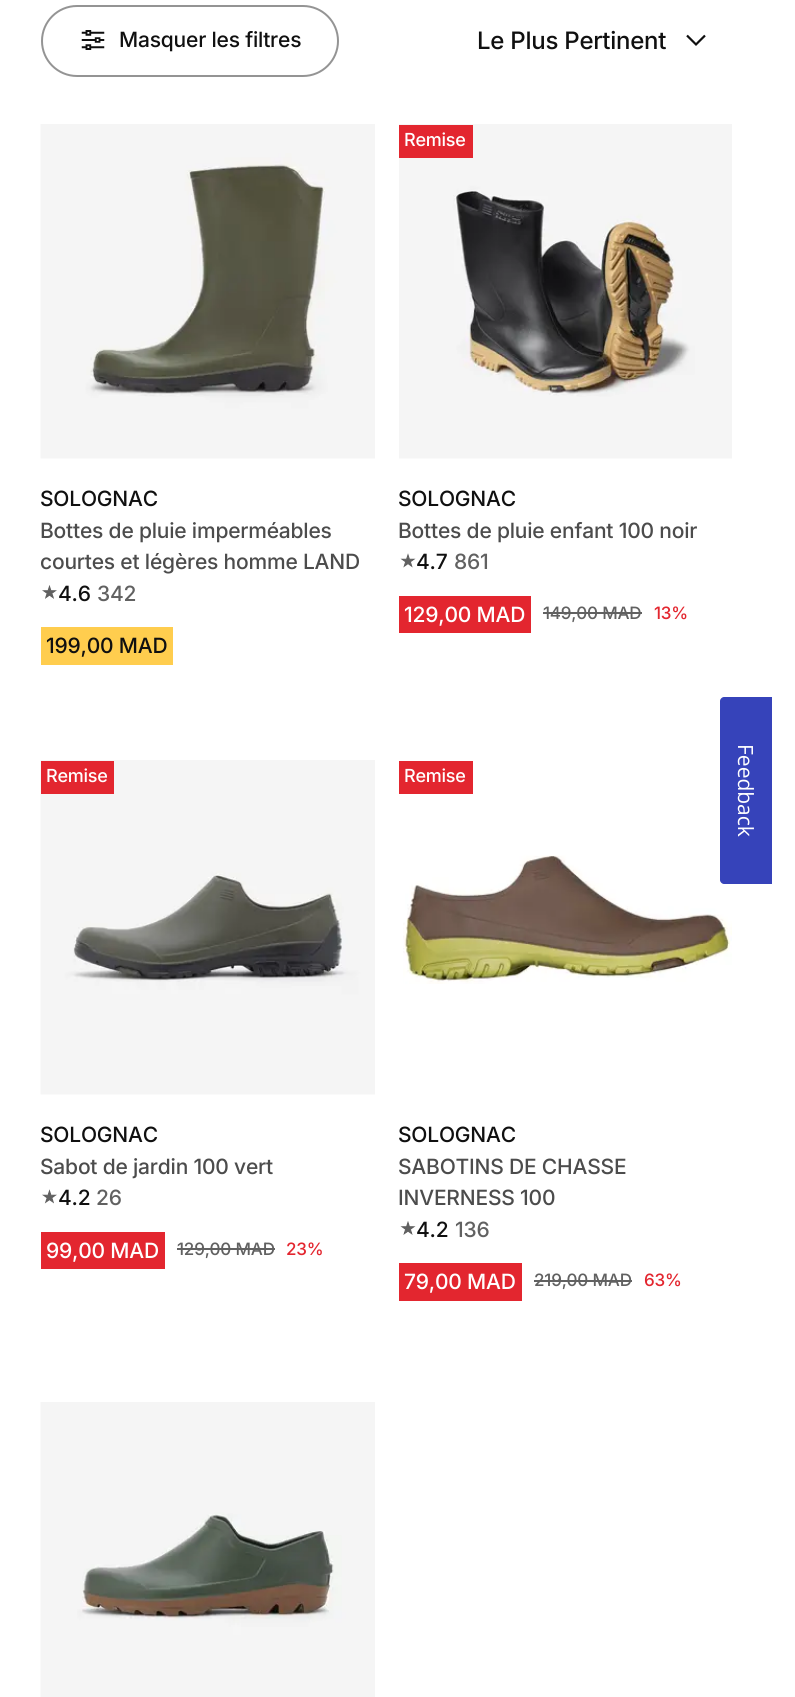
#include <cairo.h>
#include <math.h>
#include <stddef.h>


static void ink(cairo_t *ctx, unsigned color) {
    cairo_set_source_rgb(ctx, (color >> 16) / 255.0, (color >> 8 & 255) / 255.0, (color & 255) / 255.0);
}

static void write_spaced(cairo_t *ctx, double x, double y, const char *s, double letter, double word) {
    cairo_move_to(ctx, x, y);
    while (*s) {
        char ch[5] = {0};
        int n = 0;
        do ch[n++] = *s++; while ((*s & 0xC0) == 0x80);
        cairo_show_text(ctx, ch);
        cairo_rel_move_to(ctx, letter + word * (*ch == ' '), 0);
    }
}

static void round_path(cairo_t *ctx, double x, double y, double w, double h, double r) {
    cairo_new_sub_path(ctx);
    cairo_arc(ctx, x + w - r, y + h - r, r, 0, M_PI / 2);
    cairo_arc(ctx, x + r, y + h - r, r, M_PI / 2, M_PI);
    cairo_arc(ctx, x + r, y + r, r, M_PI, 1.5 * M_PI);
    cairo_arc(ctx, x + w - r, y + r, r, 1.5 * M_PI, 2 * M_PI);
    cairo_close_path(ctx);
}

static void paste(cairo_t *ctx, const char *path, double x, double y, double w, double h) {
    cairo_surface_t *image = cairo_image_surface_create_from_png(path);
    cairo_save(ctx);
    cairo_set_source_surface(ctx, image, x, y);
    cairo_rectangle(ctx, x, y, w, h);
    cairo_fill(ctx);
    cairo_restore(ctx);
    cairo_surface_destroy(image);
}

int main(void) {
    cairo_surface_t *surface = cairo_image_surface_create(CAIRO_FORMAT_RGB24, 795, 1697);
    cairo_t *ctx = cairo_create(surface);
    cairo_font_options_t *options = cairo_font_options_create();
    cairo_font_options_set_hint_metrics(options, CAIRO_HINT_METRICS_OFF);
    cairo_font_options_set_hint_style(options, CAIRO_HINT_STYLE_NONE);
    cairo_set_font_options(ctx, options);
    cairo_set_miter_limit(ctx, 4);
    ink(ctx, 0xFFFFFF);
    cairo_paint(ctx);
    round_path(ctx, 42, 6, 296, 70, 35);
    ink(ctx, 0x949494);
    cairo_stroke(ctx);
    paste(ctx, "media/1.png", 81, 30, 24, 20);
    cairo_select_font_face(ctx, "Inter Medium", CAIRO_FONT_SLANT_NORMAL, CAIRO_FONT_WEIGHT_NORMAL);
    cairo_set_font_size(ctx, 21);
    ink(ctx, 0x101010);
    write_spaced(ctx, 119, 47, "Masquer les filtres", -0.2, 0);
    cairo_set_font_size(ctx, 24);
    write_spaced(ctx, 477, 49, "Le Plus Pertinent", -0.25, 0);
    paste(ctx, "media/2.png", 686, 34, 20, 12);
    paste(ctx, "media/3.png", 40, 124, 335, 335);
    cairo_set_font_size(ctx, 21);
    write_spaced(ctx, 40, 506, "SOLOGNAC", -0.2, 0);
    ink(ctx, 0x4C4C4C);
    write_spaced(ctx, 40, 538, "Bottes de pluie imperméables", -0.2, 0);
    cairo_save(ctx);
    round_path(ctx, 41, 515, 334, 63, 3);
    cairo_clip(ctx);
    write_spaced(ctx, 40, 569, "courtes et légères homme LAND", -0.2, 0);
    cairo_restore(ctx);
    paste(ctx, "media/4.png", 42, 585, 15, 14);
    ink(ctx, 0x101010);
    write_spaced(ctx, 58, 601, "4.6", -0.2, 0);
    ink(ctx, 0x616161);
    write_spaced(ctx, 97, 601, "342", -0.2, 0);
    ink(ctx, 0xFFCD4E);
    cairo_rectangle(ctx, 41, 627, 132, 38);
    cairo_fill(ctx);
    ink(ctx, 0x101010);
    write_spaced(ctx, 46, 653, "199,00 MAD", -0.2, 0);
    paste(ctx, "media/5.png", 399, 124, 333, 335);
    ink(ctx, 0xE3262F);
    cairo_rectangle(ctx, 399, 125, 74, 33);
    cairo_fill(ctx);
    cairo_set_font_size(ctx, 18);
    ink(ctx, 0xFFFFFF);
    write_spaced(ctx, 404, 146, "Remise", -0.25, 0);
    cairo_set_font_size(ctx, 21);
    ink(ctx, 0x101010);
    write_spaced(ctx, 398, 506, "SOLOGNAC", -0.2, 0);
    ink(ctx, 0x4C4C4C);
    write_spaced(ctx, 398, 538, "Bottes de pluie enfant 100 noir", -0.2, 0);
    paste(ctx, "media/6.png", 400, 553, 16, 15);
    ink(ctx, 0x101010);
    write_spaced(ctx, 416, 569, "4.7", -0.2, 0);
    ink(ctx, 0x616161);
    write_spaced(ctx, 454, 569, "861", -0.2, 0);
    ink(ctx, 0xE3262F);
    cairo_rectangle(ctx, 399, 596, 132, 37);
    cairo_fill(ctx);
    ink(ctx, 0xFFFFFF);
    write_spaced(ctx, 404, 622, "129,00 MAD", -0.2, 0);
    cairo_set_font_size(ctx, 17);
    ink(ctx, 0x616161);
    write_spaced(ctx, 543, 619, "149,00 MAD", -0.2, 0);
    cairo_rectangle(ctx, 543, 612, 99, 2);
    cairo_fill(ctx);
    ink(ctx, 0xE3262F);
    write_spaced(ctx, 654, 619, "13%", -0.2, 0);
    paste(ctx, "media/7.png", 40, 760, 335, 335);
    cairo_rectangle(ctx, 41, 761, 73, 33);
    cairo_fill(ctx);
    cairo_set_font_size(ctx, 18);
    ink(ctx, 0xFFFFFF);
    write_spaced(ctx, 46, 782, "Remise", -0.25, 0);
    cairo_set_font_size(ctx, 21);
    ink(ctx, 0x101010);
    write_spaced(ctx, 40, 1142, "SOLOGNAC", -0.2, 0);
    ink(ctx, 0x4C4C4C);
    write_spaced(ctx, 40, 1174, "Sabot de jardin 100 vert", -0.2, 0);
    paste(ctx, "media/8.png", 42, 1189, 15, 15);
    ink(ctx, 0x101010);
    write_spaced(ctx, 58, 1205, "4.2", -0.2, 0);
    ink(ctx, 0x616161);
    write_spaced(ctx, 96, 1205, "26", -0.2, 0);
    ink(ctx, 0xE3262F);
    cairo_rectangle(ctx, 41, 1232, 124, 37);
    cairo_fill(ctx);
    ink(ctx, 0xFFFFFF);
    write_spaced(ctx, 46, 1258, "99,00 MAD", -0.2, 0);
    cairo_set_font_size(ctx, 17);
    ink(ctx, 0x616161);
    write_spaced(ctx, 177, 1255, "129,00 MAD", -0.2, 0);
    cairo_rectangle(ctx, 177, 1248, 98, 2);
    cairo_fill(ctx);
    ink(ctx, 0xE3262F);
    write_spaced(ctx, 286, 1255, "23%", -0.2, 0);
    cairo_rectangle(ctx, 399, 761, 74, 33);
    cairo_fill(ctx);
    cairo_set_font_size(ctx, 18);
    ink(ctx, 0xFFFFFF);
    write_spaced(ctx, 404, 782, "Remise", -0.25, 0);
    paste(ctx, "media/9.png", 403, 855, 329, 129);
    cairo_set_font_size(ctx, 21);
    ink(ctx, 0x101010);
    write_spaced(ctx, 398, 1142, "SOLOGNAC", -0.2, 0);
    ink(ctx, 0x4C4C4C);
    write_spaced(ctx, 398, 1174, "SABOTINS DE CHASSE", -0.2, 0);
    write_spaced(ctx, 398, 1205, "INVERNESS 100", -0.2, 0);
    paste(ctx, "media/10.png", 400, 1221, 16, 14);
    ink(ctx, 0x101010);
    write_spaced(ctx, 416, 1237, "4.2", -0.2, 0);
    ink(ctx, 0x616161);
    write_spaced(ctx, 455, 1237, "136", -0.2, 0);
    ink(ctx, 0xE3262F);
    cairo_rectangle(ctx, 399, 1263, 123, 38);
    cairo_fill(ctx);
    ink(ctx, 0xFFFFFF);
    write_spaced(ctx, 404, 1289, "79,00 MAD", -0.2, 0);
    cairo_set_font_size(ctx, 17);
    ink(ctx, 0x616161);
    write_spaced(ctx, 534, 1286, "219,00 MAD", -0.2, 0);
    cairo_rectangle(ctx, 534, 1280, 98, 2);
    cairo_fill(ctx);
    ink(ctx, 0xE3262F);
    write_spaced(ctx, 644, 1286, "63%", -0.2, 0);
    paste(ctx, "media/11.png", 40, 1402, 335, 295);
    ink(ctx, 0x3643BA);
    cairo_new_path(ctx);
    cairo_move_to(ctx, 772, 697);
    cairo_line_to(ctx, 772, 884);
    cairo_line_to(ctx, 724, 884);
    cairo_curve_to(ctx, 722, 884, 720, 882, 720, 880);
    cairo_line_to(ctx, 720, 701);
    cairo_curve_to(ctx, 720, 699, 722, 697, 724, 697);
    cairo_close_path(ctx);
    cairo_fill(ctx);
    cairo_select_font_face(ctx, "Open Sans", CAIRO_FONT_SLANT_NORMAL, CAIRO_FONT_WEIGHT_NORMAL);
    cairo_set_font_size(ctx, 21);
    ink(ctx, 0xFFFFFF);
    cairo_save(ctx);
    cairo_translate(ctx, 738, 744);
    cairo_rotate(ctx, 90 * M_PI / 180);
    cairo_move_to(ctx, 0, 0);
    cairo_show_text(ctx, "Feedback");
    cairo_restore(ctx);
    cairo_surface_write_to_png(surface, "image.png");
    cairo_font_options_destroy(options);
    cairo_destroy(ctx);
    cairo_surface_destroy(surface);
    return 0;
}
